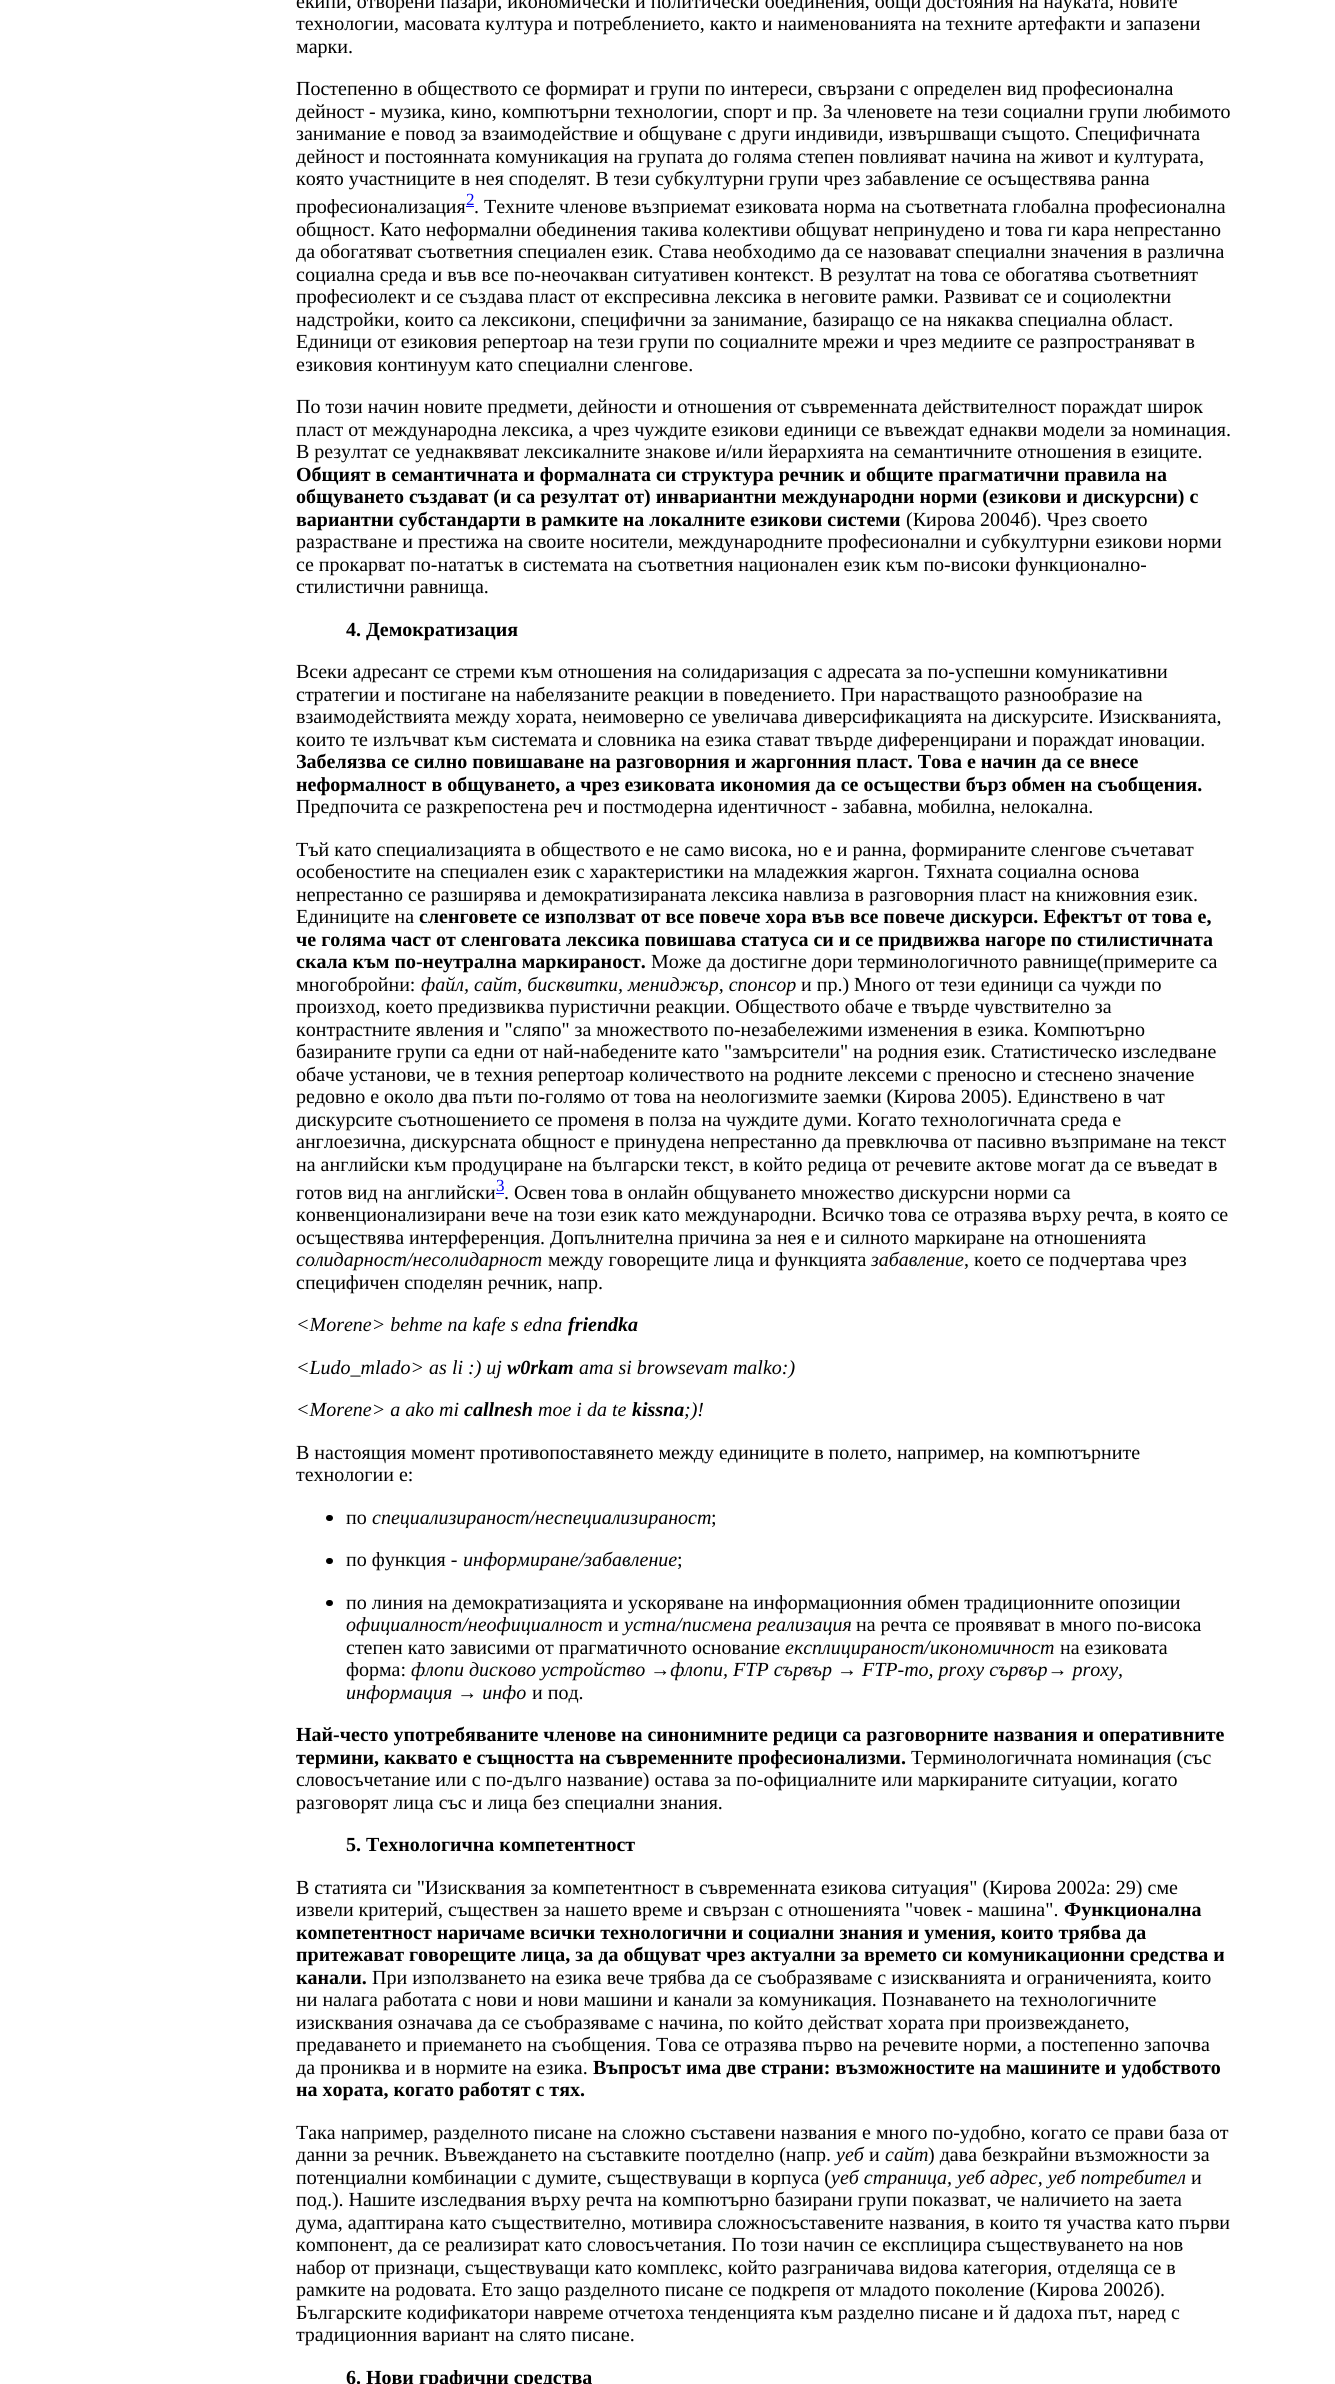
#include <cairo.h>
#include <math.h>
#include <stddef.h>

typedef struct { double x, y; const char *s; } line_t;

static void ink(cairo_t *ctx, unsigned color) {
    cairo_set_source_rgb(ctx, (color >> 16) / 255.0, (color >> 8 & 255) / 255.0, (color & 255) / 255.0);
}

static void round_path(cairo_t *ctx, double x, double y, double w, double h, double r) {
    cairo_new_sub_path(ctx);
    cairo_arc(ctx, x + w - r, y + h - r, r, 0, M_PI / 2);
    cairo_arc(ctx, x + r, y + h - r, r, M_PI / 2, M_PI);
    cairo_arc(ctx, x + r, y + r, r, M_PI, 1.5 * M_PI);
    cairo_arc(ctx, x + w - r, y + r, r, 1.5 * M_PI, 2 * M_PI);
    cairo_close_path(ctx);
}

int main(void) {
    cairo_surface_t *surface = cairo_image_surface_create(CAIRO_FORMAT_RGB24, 1335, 2384);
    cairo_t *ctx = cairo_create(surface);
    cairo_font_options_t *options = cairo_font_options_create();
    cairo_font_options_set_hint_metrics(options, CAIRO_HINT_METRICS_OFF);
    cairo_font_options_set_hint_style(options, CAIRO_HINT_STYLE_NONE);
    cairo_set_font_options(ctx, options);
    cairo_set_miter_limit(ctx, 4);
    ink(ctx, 0xFFFFFF);
    cairo_paint(ctx);
    cairo_select_font_face(ctx, "Liberation Serif", CAIRO_FONT_SLANT_NORMAL, CAIRO_FONT_WEIGHT_NORMAL);
    cairo_set_font_size(ctx, 20);
    ink(ctx, 0x000000);
    {
        static const line_t items[] = {
            {296, 8, "екипи, отворени пазари, икономически и политически обединения, общи достояния на науката, новите"},
            {296, 30, "технологии, масовата култура и потреблението, както и наименованията на техните артефакти и запазени"},
            {296, 53, "марки."},
            {296, 95, "Постепенно в обществото се формират и групи по интереси, свързани с определен вид професионална"},
            {296, 118, "дейност - музика, кино, компютърни технологии, спорт и пр. За членовете на тези социални групи любимото"},
            {296, 140, "занимание е повод за взаимодействие и общуване с други индивиди, извършващи същото. Специфичната"},
            {296, 163, "дейност и постоянната комуникация на групата до голяма степен повлияват начина на живот и културата,"},
            {296, 185, "която участниците в нея споделят. В тези субкултурни групи чрез забавление се осъществява ранна"},
            {296, 213, "професионализация"},
        };
        for (size_t i = 0; i < sizeof items / sizeof *items; i++) {
            cairo_move_to(ctx, items[i].x, items[i].y);
            cairo_show_text(ctx, items[i].s);
        }
    }
    cairo_set_font_size(ctx, 17);
    ink(ctx, 0x0000EE);
    cairo_move_to(ctx, 466, 205);
    cairo_show_text(ctx, "2");
    cairo_rectangle(ctx, 466, 206, 8, 1);
    cairo_fill(ctx);
    cairo_set_font_size(ctx, 20);
    ink(ctx, 0x000000);
    {
        static const line_t items[] = {
            {474, 213, ". Техните членове възприемат езиковата норма на съответната глобална професионална"},
            {296, 236, "общност. Като неформални обединения такива колективи общуват непринудено и това ги кара непрестанно"},
            {296, 258, "да обогатяват съответния специален език. Става необходимо да се назовават специални значения в различна"},
            {296, 281, "социална среда и във все по-неочакван ситуативен контекст. В резултат на това се обогатява съответният"},
            {296, 303, "професиолект и се създава пласт от експресивна лексика в неговите рамки. Развиват се и социолектни"},
            {296, 326, "надстройки, които са лексикони, специфични за занимание, базиращо се на някаква специална област."},
            {296, 348, "Единици от езиковия репертоар на тези групи по социалните мрежи и чрез медиите се разпространяват в"},
            {296, 371, "езиковия континуум като специални сленгове."},
            {296, 413, "По този начин новите предмети, дейности и отношения от съвременната действителност пораждат широк"},
            {296, 436, "пласт от международна лексика, а чрез чуждите езикови единици се въвеждат еднакви модели за номинация."},
            {296, 458, "В резултат се уеднаквяват лексикалните знакове и/или йерархията на семантичните отношения в езиците."},
        };
        for (size_t i = 0; i < sizeof items / sizeof *items; i++) {
            cairo_move_to(ctx, items[i].x, items[i].y);
            cairo_show_text(ctx, items[i].s);
        }
    }
    cairo_select_font_face(ctx, "Liberation Serif", CAIRO_FONT_SLANT_NORMAL, CAIRO_FONT_WEIGHT_BOLD);
    {
        static const line_t items[] = {
            {296, 481, "Общият в семантичната и формалната си структура речник и общите прагматични правила на"},
            {296, 503, "общуването създават (и са резултат от) инвариантни международни норми (езикови и дискурсни) с"},
            {296, 526, "вариантни субстандарти в рамките на локалните езикови системи"},
        };
        for (size_t i = 0; i < sizeof items / sizeof *items; i++) {
            cairo_move_to(ctx, items[i].x, items[i].y);
            cairo_show_text(ctx, items[i].s);
        }
    }
    cairo_select_font_face(ctx, "Liberation Serif", CAIRO_FONT_SLANT_NORMAL, CAIRO_FONT_WEIGHT_NORMAL);
    {
        static const line_t items[] = {
            {906, 526, "(Кирова 2004б). Чрез своето"},
            {296, 548, "разрастване и престижа на своите носители, международните професионални и субкултурни езикови норми"},
            {296, 571, "се прокарват по-нататък в системата на съответния национален език към по-високи функционално-"},
            {296, 593, "стилистични равнища."},
        };
        for (size_t i = 0; i < sizeof items / sizeof *items; i++) {
            cairo_move_to(ctx, items[i].x, items[i].y);
            cairo_show_text(ctx, items[i].s);
        }
    }
    cairo_select_font_face(ctx, "Liberation Serif", CAIRO_FONT_SLANT_NORMAL, CAIRO_FONT_WEIGHT_BOLD);
    cairo_move_to(ctx, 346, 636);
    cairo_show_text(ctx, "4. Демократизация");
    cairo_select_font_face(ctx, "Liberation Serif", CAIRO_FONT_SLANT_NORMAL, CAIRO_FONT_WEIGHT_NORMAL);
    {
        static const line_t items[] = {
            {296, 678, "Всеки адресант се стреми към отношения на солидаризация с адресата за по-успешни комуникативни"},
            {296, 701, "стратегии и постигане на набелязаните реакции в поведението. При нарастващото разнообразие на"},
            {296, 723, "взаимодействията между хората, неимоверно се увеличава диверсификацията на дискурсите. Изискванията,"},
            {296, 746, "които те излъчват към системата и словника на езика стават твърде диференцирани и пораждат иновации."},
        };
        for (size_t i = 0; i < sizeof items / sizeof *items; i++) {
            cairo_move_to(ctx, items[i].x, items[i].y);
            cairo_show_text(ctx, items[i].s);
        }
    }
    cairo_select_font_face(ctx, "Liberation Serif", CAIRO_FONT_SLANT_NORMAL, CAIRO_FONT_WEIGHT_BOLD);
    cairo_move_to(ctx, 296, 768);
    cairo_show_text(ctx, "Забелязва се силно повишаване на разговорния и жаргонния пласт. Това е начин да се внесе");
    cairo_move_to(ctx, 296, 791);
    cairo_show_text(ctx, "неформалност в общуването, а чрез езиковата икономия да се осъществи бърз обмен на съобщения.");
    cairo_select_font_face(ctx, "Liberation Serif", CAIRO_FONT_SLANT_NORMAL, CAIRO_FONT_WEIGHT_NORMAL);
    {
        static const line_t items[] = {
            {296, 813, "Предпочита се разкрепостена реч и постмодерна идентичност - забавна, мобилна, нелокална."},
            {296, 856, "Тъй като специализацията в обществото е не само висока, но е и ранна, формираните сленгове съчетават"},
            {296, 878, "особеностите на специален език с характеристики на младежкия жаргон. Тяхната социална основа"},
            {296, 901, "непрестанно се разширява и демократизираната лексика навлиза в разговорния пласт на книжовния език."},
            {296, 923, "Единиците на"},
        };
        for (size_t i = 0; i < sizeof items / sizeof *items; i++) {
            cairo_move_to(ctx, items[i].x, items[i].y);
            cairo_show_text(ctx, items[i].s);
        }
    }
    cairo_select_font_face(ctx, "Liberation Serif", CAIRO_FONT_SLANT_NORMAL, CAIRO_FONT_WEIGHT_BOLD);
    {
        static const line_t items[] = {
            {419, 923, "сленговете се използват от все повече хора във все повече дискурси. Ефектът от това е,"},
            {296, 946, "че голяма част от сленговата лексика повишава статуса си и се придвижва нагоре по стилистичната"},
            {296, 968, "скала към по-неутрална маркираност."},
        };
        for (size_t i = 0; i < sizeof items / sizeof *items; i++) {
            cairo_move_to(ctx, items[i].x, items[i].y);
            cairo_show_text(ctx, items[i].s);
        }
    }
    cairo_select_font_face(ctx, "Liberation Serif", CAIRO_FONT_SLANT_NORMAL, CAIRO_FONT_WEIGHT_NORMAL);
    cairo_move_to(ctx, 651, 968);
    cairo_show_text(ctx, "Може да достигне дори терминологичното равнище(примерите са");
    cairo_move_to(ctx, 296, 991);
    cairo_show_text(ctx, "многобройни:");
    cairo_select_font_face(ctx, "Liberation Serif", CAIRO_FONT_SLANT_ITALIC, CAIRO_FONT_WEIGHT_NORMAL);
    cairo_move_to(ctx, 421, 991);
    cairo_show_text(ctx, "файл, сайт, бисквитки, мениджър, спонсор");
    cairo_select_font_face(ctx, "Liberation Serif", CAIRO_FONT_SLANT_NORMAL, CAIRO_FONT_WEIGHT_NORMAL);
    {
        static const line_t items[] = {
            {801, 991, "и пр.) Много от тези единици са чужди по"},
            {296, 1013, "произход, което предизвиква пуристични реакции. Обществото обаче е твърде чувствително за"},
            {296, 1036, "контрастните явления и \"сляпо\" за множеството по-незабележими изменения в езика. Компютърно"},
            {296, 1058, "базираните групи са едни от най-набедените като \"замърсители\" на родния език. Статистическо изследване"},
            {296, 1081, "обаче установи, че в техния репертоар количеството на родните лексеми с преносно и стеснено значение"},
            {296, 1103, "редовно е около два пъти по-голямо от това на неологизмите заемки (Кирова 2005). Единствено в чат"},
            {296, 1126, "дискурсите съотношението се променя в полза на чуждите думи. Когато технологичната среда е"},
            {296, 1148, "англоезична, дискурсната общност е принудена непрестанно да превключва от пасивно възпримане на текст"},
            {296, 1171, "на английски към продуциране на български текст, в който редица от речевите актове могат да се въведат в"},
            {296, 1199, "готов вид на английски"},
        };
        for (size_t i = 0; i < sizeof items / sizeof *items; i++) {
            cairo_move_to(ctx, items[i].x, items[i].y);
            cairo_show_text(ctx, items[i].s);
        }
    }
    cairo_set_font_size(ctx, 17);
    ink(ctx, 0x0000EE);
    cairo_move_to(ctx, 496, 1191);
    cairo_show_text(ctx, "3");
    cairo_rectangle(ctx, 496, 1193, 8, 1);
    cairo_fill(ctx);
    cairo_set_font_size(ctx, 20);
    ink(ctx, 0x000000);
    {
        static const line_t items[] = {
            {504, 1199, ". Освен това в онлайн общуването множество дискурсни норми са"},
            {296, 1221, "конвенционализирани вече на този език като международни. Всичко това се отразява върху речта, в която се"},
            {296, 1244, "осъществява интерференция. Допълнителна причина за нея е и силното маркиране на отношенията"},
        };
        for (size_t i = 0; i < sizeof items / sizeof *items; i++) {
            cairo_move_to(ctx, items[i].x, items[i].y);
            cairo_show_text(ctx, items[i].s);
        }
    }
    cairo_select_font_face(ctx, "Liberation Serif", CAIRO_FONT_SLANT_ITALIC, CAIRO_FONT_WEIGHT_NORMAL);
    cairo_move_to(ctx, 296, 1266);
    cairo_show_text(ctx, "солидарност/несолидарност");
    cairo_select_font_face(ctx, "Liberation Serif", CAIRO_FONT_SLANT_NORMAL, CAIRO_FONT_WEIGHT_NORMAL);
    cairo_move_to(ctx, 548, 1266);
    cairo_show_text(ctx, "между говорещите лица и функцията");
    cairo_select_font_face(ctx, "Liberation Serif", CAIRO_FONT_SLANT_ITALIC, CAIRO_FONT_WEIGHT_NORMAL);
    cairo_move_to(ctx, 871, 1266);
    cairo_show_text(ctx, "забавление");
    cairo_select_font_face(ctx, "Liberation Serif", CAIRO_FONT_SLANT_NORMAL, CAIRO_FONT_WEIGHT_NORMAL);
    cairo_move_to(ctx, 964, 1266);
    cairo_show_text(ctx, ", което се подчертава чрез");
    cairo_move_to(ctx, 296, 1289);
    cairo_show_text(ctx, "специфичен споделян речник, напр.");
    cairo_select_font_face(ctx, "Liberation Serif", CAIRO_FONT_SLANT_ITALIC, CAIRO_FONT_WEIGHT_NORMAL);
    cairo_move_to(ctx, 296, 1331);
    cairo_show_text(ctx, "<Morene> behme na kafe s edna");
    cairo_select_font_face(ctx, "Liberation Serif", CAIRO_FONT_SLANT_ITALIC, CAIRO_FONT_WEIGHT_BOLD);
    cairo_move_to(ctx, 568, 1331);
    cairo_show_text(ctx, "friendka");
    cairo_select_font_face(ctx, "Liberation Serif", CAIRO_FONT_SLANT_ITALIC, CAIRO_FONT_WEIGHT_NORMAL);
    cairo_move_to(ctx, 296, 1374);
    cairo_show_text(ctx, "<Ludo_mlado> as li :) uj");
    cairo_select_font_face(ctx, "Liberation Serif", CAIRO_FONT_SLANT_ITALIC, CAIRO_FONT_WEIGHT_BOLD);
    cairo_move_to(ctx, 507, 1374);
    cairo_show_text(ctx, "w0rkam");
    cairo_select_font_face(ctx, "Liberation Serif", CAIRO_FONT_SLANT_ITALIC, CAIRO_FONT_WEIGHT_NORMAL);
    cairo_move_to(ctx, 579, 1374);
    cairo_show_text(ctx, "ama si browsevam malko:)");
    cairo_move_to(ctx, 296, 1416);
    cairo_show_text(ctx, "<Morene> a ako mi");
    cairo_select_font_face(ctx, "Liberation Serif", CAIRO_FONT_SLANT_ITALIC, CAIRO_FONT_WEIGHT_BOLD);
    cairo_move_to(ctx, 464, 1416);
    cairo_show_text(ctx, "callnesh");
    cairo_select_font_face(ctx, "Liberation Serif", CAIRO_FONT_SLANT_ITALIC, CAIRO_FONT_WEIGHT_NORMAL);
    cairo_move_to(ctx, 538, 1416);
    cairo_show_text(ctx, "moe i da te");
    cairo_select_font_face(ctx, "Liberation Serif", CAIRO_FONT_SLANT_ITALIC, CAIRO_FONT_WEIGHT_BOLD);
    cairo_move_to(ctx, 632, 1416);
    cairo_show_text(ctx, "kissna");
    cairo_select_font_face(ctx, "Liberation Serif", CAIRO_FONT_SLANT_ITALIC, CAIRO_FONT_WEIGHT_NORMAL);
    cairo_move_to(ctx, 684, 1416);
    cairo_show_text(ctx, ";)!");
    cairo_select_font_face(ctx, "Liberation Serif", CAIRO_FONT_SLANT_NORMAL, CAIRO_FONT_WEIGHT_NORMAL);
    cairo_move_to(ctx, 296, 1459);
    cairo_show_text(ctx, "В настоящия момент противопоставянето между единиците в полето, например, на компютърните");
    cairo_move_to(ctx, 296, 1481);
    cairo_show_text(ctx, "технологии е:");
    round_path(ctx, 326, 1515, 7, 6, 3);
    cairo_fill(ctx);
    cairo_move_to(ctx, 346, 1524);
    cairo_show_text(ctx, "по");
    cairo_select_font_face(ctx, "Liberation Serif", CAIRO_FONT_SLANT_ITALIC, CAIRO_FONT_WEIGHT_NORMAL);
    cairo_move_to(ctx, 372, 1524);
    cairo_show_text(ctx, "специализираност/неспециализираност");
    cairo_select_font_face(ctx, "Liberation Serif", CAIRO_FONT_SLANT_NORMAL, CAIRO_FONT_WEIGHT_NORMAL);
    cairo_move_to(ctx, 711, 1524);
    cairo_show_text(ctx, ";");
    round_path(ctx, 326, 1558, 7, 6, 3);
    cairo_fill(ctx);
    cairo_move_to(ctx, 346, 1566);
    cairo_show_text(ctx, "по функция -");
    cairo_select_font_face(ctx, "Liberation Serif", CAIRO_FONT_SLANT_ITALIC, CAIRO_FONT_WEIGHT_NORMAL);
    cairo_move_to(ctx, 463, 1566);
    cairo_show_text(ctx, "информиране/забавление");
    cairo_select_font_face(ctx, "Liberation Serif", CAIRO_FONT_SLANT_NORMAL, CAIRO_FONT_WEIGHT_NORMAL);
    cairo_move_to(ctx, 677, 1566);
    cairo_show_text(ctx, ";");
    round_path(ctx, 326, 1600, 7, 6, 3);
    cairo_fill(ctx);
    cairo_move_to(ctx, 346, 1609);
    cairo_show_text(ctx, "по линия на демократизацията и ускоряване на информационния обмен традиционните опозиции");
    cairo_select_font_face(ctx, "Liberation Serif", CAIRO_FONT_SLANT_ITALIC, CAIRO_FONT_WEIGHT_NORMAL);
    cairo_move_to(ctx, 346, 1631);
    cairo_show_text(ctx, "официалност/неофициалност");
    cairo_select_font_face(ctx, "Liberation Serif", CAIRO_FONT_SLANT_NORMAL, CAIRO_FONT_WEIGHT_NORMAL);
    cairo_move_to(ctx, 608, 1631);
    cairo_show_text(ctx, "и");
    cairo_select_font_face(ctx, "Liberation Serif", CAIRO_FONT_SLANT_ITALIC, CAIRO_FONT_WEIGHT_NORMAL);
    cairo_move_to(ctx, 624, 1631);
    cairo_show_text(ctx, "устна/писмена реализация");
    cairo_select_font_face(ctx, "Liberation Serif", CAIRO_FONT_SLANT_NORMAL, CAIRO_FONT_WEIGHT_NORMAL);
    cairo_move_to(ctx, 856, 1631);
    cairo_show_text(ctx, "на речта се проявяват в много по-висока");
    cairo_move_to(ctx, 346, 1654);
    cairo_show_text(ctx, "степен като зависими от прагматичното основание");
    cairo_select_font_face(ctx, "Liberation Serif", CAIRO_FONT_SLANT_ITALIC, CAIRO_FONT_WEIGHT_NORMAL);
    cairo_move_to(ctx, 785, 1654);
    cairo_show_text(ctx, "експлицираност/икономичност");
    cairo_select_font_face(ctx, "Liberation Serif", CAIRO_FONT_SLANT_NORMAL, CAIRO_FONT_WEIGHT_NORMAL);
    cairo_move_to(ctx, 1060, 1654);
    cairo_show_text(ctx, "на езиковата");
    cairo_move_to(ctx, 346, 1676);
    cairo_show_text(ctx, "форма:");
    cairo_select_font_face(ctx, "Liberation Serif", CAIRO_FONT_SLANT_ITALIC, CAIRO_FONT_WEIGHT_NORMAL);
    cairo_move_to(ctx, 411, 1676);
    cairo_show_text(ctx, "флопи дисково устройство →флопи, FTP сървър → FTP-то, proxy сървър→ proxy,");
    cairo_move_to(ctx, 346, 1699);
    cairo_show_text(ctx, "информация → инфо");
    cairo_select_font_face(ctx, "Liberation Serif", CAIRO_FONT_SLANT_NORMAL, CAIRO_FONT_WEIGHT_NORMAL);
    cairo_move_to(ctx, 532, 1699);
    cairo_show_text(ctx, "и под.");
    cairo_select_font_face(ctx, "Liberation Serif", CAIRO_FONT_SLANT_NORMAL, CAIRO_FONT_WEIGHT_BOLD);
    cairo_move_to(ctx, 296, 1741);
    cairo_show_text(ctx, "Най-често употребяваните членове на синонимните редици са разговорните названия и оперативните");
    cairo_move_to(ctx, 296, 1764);
    cairo_show_text(ctx, "термини, каквато е същността на съвременните професионализми.");
    cairo_select_font_face(ctx, "Liberation Serif", CAIRO_FONT_SLANT_NORMAL, CAIRO_FONT_WEIGHT_NORMAL);
    {
        static const line_t items[] = {
            {911, 1764, "Терминологичната номинация (със"},
            {296, 1786, "словосъчетание или с по-дълго название) остава за по-официалните или маркираните ситуации, когато"},
            {296, 1809, "разговорят лица със и лица без специални знания."},
        };
        for (size_t i = 0; i < sizeof items / sizeof *items; i++) {
            cairo_move_to(ctx, items[i].x, items[i].y);
            cairo_show_text(ctx, items[i].s);
        }
    }
    cairo_select_font_face(ctx, "Liberation Serif", CAIRO_FONT_SLANT_NORMAL, CAIRO_FONT_WEIGHT_BOLD);
    cairo_move_to(ctx, 346, 1851);
    cairo_show_text(ctx, "5. Технологична компетентност");
    cairo_select_font_face(ctx, "Liberation Serif", CAIRO_FONT_SLANT_NORMAL, CAIRO_FONT_WEIGHT_NORMAL);
    cairo_move_to(ctx, 296, 1894);
    cairo_show_text(ctx, "В статията си \"Изисквания за компетентност в съвременната езикова ситуация\" (Кирова 2002а: 29) сме");
    cairo_move_to(ctx, 296, 1916);
    cairo_show_text(ctx, "извели критерий, съществен за нашето време и свързан с отношенията \"човек - машина\".");
    cairo_select_font_face(ctx, "Liberation Serif", CAIRO_FONT_SLANT_NORMAL, CAIRO_FONT_WEIGHT_BOLD);
    {
        static const line_t items[] = {
            {1064, 1916, "Функционална"},
            {296, 1939, "компетентност наричаме всички технологични и социални знания и умения, които трябва да"},
            {296, 1961, "притежават говорещите лица, за да общуват чрез актуални за времето си комуникационни средства и"},
            {296, 1984, "канали."},
        };
        for (size_t i = 0; i < sizeof items / sizeof *items; i++) {
            cairo_move_to(ctx, items[i].x, items[i].y);
            cairo_show_text(ctx, items[i].s);
        }
    }
    cairo_select_font_face(ctx, "Liberation Serif", CAIRO_FONT_SLANT_NORMAL, CAIRO_FONT_WEIGHT_NORMAL);
    {
        static const line_t items[] = {
            {372, 1984, "При използването на езика вече трябва да се съобразяваме с изискванията и ограниченията, които"},
            {296, 2006, "ни налага работата с нови и нови машини и канали за комуникация. Познаването на технологичните"},
            {296, 2029, "изисквания означава да се съобразяваме с начина, по който действат хората при произвеждането,"},
            {296, 2051, "предаването и приемането на съобщения. Това се отразява първо на речевите норми, а постепенно започва"},
            {296, 2074, "да прониква и в нормите на езика."},
        };
        for (size_t i = 0; i < sizeof items / sizeof *items; i++) {
            cairo_move_to(ctx, items[i].x, items[i].y);
            cairo_show_text(ctx, items[i].s);
        }
    }
    cairo_select_font_face(ctx, "Liberation Serif", CAIRO_FONT_SLANT_NORMAL, CAIRO_FONT_WEIGHT_BOLD);
    cairo_move_to(ctx, 593, 2074);
    cairo_show_text(ctx, "Въпросът има две страни: възможностите на машините и удобството");
    cairo_move_to(ctx, 296, 2096);
    cairo_show_text(ctx, "на хората, когато работят с тях.");
    cairo_select_font_face(ctx, "Liberation Serif", CAIRO_FONT_SLANT_NORMAL, CAIRO_FONT_WEIGHT_NORMAL);
    cairo_move_to(ctx, 296, 2139);
    cairo_show_text(ctx, "Така например, разделното писане на сложно съставени названия е много по-удобно, когато се прави база от");
    cairo_move_to(ctx, 296, 2161);
    cairo_show_text(ctx, "данни за речник. Въвеждането на съставките поотделно (напр.");
    cairo_select_font_face(ctx, "Liberation Serif", CAIRO_FONT_SLANT_ITALIC, CAIRO_FONT_WEIGHT_NORMAL);
    cairo_move_to(ctx, 836, 2161);
    cairo_show_text(ctx, "уеб");
    cairo_select_font_face(ctx, "Liberation Serif", CAIRO_FONT_SLANT_NORMAL, CAIRO_FONT_WEIGHT_NORMAL);
    cairo_move_to(ctx, 869, 2161);
    cairo_show_text(ctx, "и");
    cairo_select_font_face(ctx, "Liberation Serif", CAIRO_FONT_SLANT_ITALIC, CAIRO_FONT_WEIGHT_NORMAL);
    cairo_move_to(ctx, 885, 2161);
    cairo_show_text(ctx, "сайт");
    cairo_select_font_face(ctx, "Liberation Serif", CAIRO_FONT_SLANT_NORMAL, CAIRO_FONT_WEIGHT_NORMAL);
    cairo_move_to(ctx, 928, 2161);
    cairo_show_text(ctx, ") дава безкрайни възможности за");
    cairo_move_to(ctx, 296, 2184);
    cairo_show_text(ctx, "потенциални комбинации с думите, съществуващи в корпуса (");
    cairo_select_font_face(ctx, "Liberation Serif", CAIRO_FONT_SLANT_ITALIC, CAIRO_FONT_WEIGHT_NORMAL);
    cairo_move_to(ctx, 831, 2184);
    cairo_show_text(ctx, "уеб страница, уеб адрес, уеб потребител");
    cairo_select_font_face(ctx, "Liberation Serif", CAIRO_FONT_SLANT_NORMAL, CAIRO_FONT_WEIGHT_NORMAL);
    {
        static const line_t items[] = {
            {1191, 2184, "и"},
            {296, 2206, "под.). Нашите изследвания върху речта на компютърно базирани групи показват, че наличието на заета"},
            {296, 2229, "дума, адаптирана като съществително, мотивира сложносъставените названия, в които тя участва като първи"},
            {296, 2251, "компонент, да се реализират като словосъчетания. По този начин се експлицира съществуването на нов"},
            {296, 2274, "набор от признаци, съществуващи като комплекс, който разграничава видова категория, отделяща се в"},
            {296, 2296, "рамките на родовата. Ето защо разделното писане се подкрепя от младото поколение (Кирова 2002б)."},
            {296, 2319, "Българските кодификатори навреме отчетоха тенденцията към разделно писане и й дадоха път, наред с"},
            {296, 2341, "традиционния вариант на слято писане."},
        };
        for (size_t i = 0; i < sizeof items / sizeof *items; i++) {
            cairo_move_to(ctx, items[i].x, items[i].y);
            cairo_show_text(ctx, items[i].s);
        }
    }
    cairo_select_font_face(ctx, "Liberation Serif", CAIRO_FONT_SLANT_NORMAL, CAIRO_FONT_WEIGHT_BOLD);
    cairo_move_to(ctx, 346, 2384);
    cairo_show_text(ctx, "6. Нови графични средства");
    cairo_surface_write_to_png(surface, "image.png");
    cairo_font_options_destroy(options);
    cairo_destroy(ctx);
    cairo_surface_destroy(surface);
    return 0;
}
